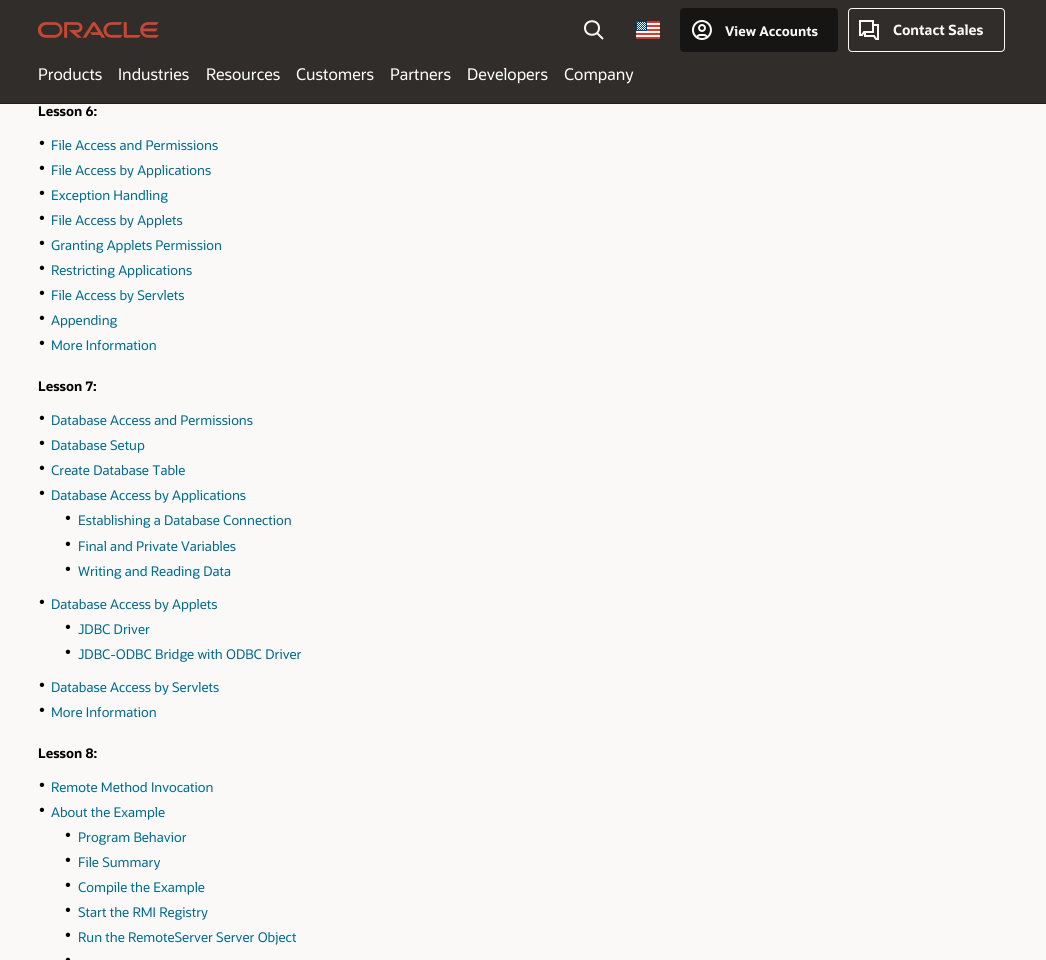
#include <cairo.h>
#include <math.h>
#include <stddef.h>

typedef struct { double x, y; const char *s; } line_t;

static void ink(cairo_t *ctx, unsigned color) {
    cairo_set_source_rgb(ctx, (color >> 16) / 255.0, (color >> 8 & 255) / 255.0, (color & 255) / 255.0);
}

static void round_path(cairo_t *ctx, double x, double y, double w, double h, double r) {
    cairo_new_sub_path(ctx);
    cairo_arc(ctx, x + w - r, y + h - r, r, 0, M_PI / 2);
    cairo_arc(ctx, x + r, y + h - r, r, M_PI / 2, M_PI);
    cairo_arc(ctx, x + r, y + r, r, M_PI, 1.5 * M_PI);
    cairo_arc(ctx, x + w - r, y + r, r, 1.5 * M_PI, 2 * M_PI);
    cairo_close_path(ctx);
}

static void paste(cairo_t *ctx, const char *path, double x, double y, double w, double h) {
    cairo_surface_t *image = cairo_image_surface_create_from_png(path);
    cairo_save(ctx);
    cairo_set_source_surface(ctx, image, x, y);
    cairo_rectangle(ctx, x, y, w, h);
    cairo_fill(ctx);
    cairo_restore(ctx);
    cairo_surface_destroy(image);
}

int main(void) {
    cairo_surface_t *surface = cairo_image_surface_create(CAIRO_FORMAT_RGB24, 1046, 960);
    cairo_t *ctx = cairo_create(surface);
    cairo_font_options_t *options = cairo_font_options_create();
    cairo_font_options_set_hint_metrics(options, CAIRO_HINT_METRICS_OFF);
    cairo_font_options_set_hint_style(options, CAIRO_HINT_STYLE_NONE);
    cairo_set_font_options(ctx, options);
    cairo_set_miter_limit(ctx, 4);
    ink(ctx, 0xFBF9F8);
    cairo_paint(ctx);
    ink(ctx, 0x312D2A);
    cairo_rectangle(ctx, 0, 0, 1046, 103);
    cairo_fill(ctx);
    paste(ctx, "media/1.png", 38, 22, 121, 16);
    cairo_new_path(ctx);
    cairo_move_to(ctx, 597, 33);
    cairo_line_to(ctx, 603, 39);
    cairo_move_to(ctx, 599, 28);
    cairo_curve_to(ctx, 599, 37, 585, 37, 585, 28);
    cairo_curve_to(ctx, 585, 19, 599, 19, 599, 28);
    cairo_close_path(ctx);
    ink(ctx, 0xFBF9F8);
    cairo_stroke(ctx);
    paste(ctx, "media/2.png", 636, 21, 24, 18);
    ink(ctx, 0x161513);
    round_path(ctx, 680, 8, 158, 44, 4);
    cairo_fill(ctx);
    paste(ctx, "media/3.png", 692, 20, 20, 20);
    cairo_select_font_face(ctx, "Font", CAIRO_FONT_SLANT_NORMAL, CAIRO_FONT_WEIGHT_BOLD);
    cairo_set_font_size(ctx, 13.25);
    ink(ctx, 0xFBF9F8);
    cairo_move_to(ctx, 725, 36);
    cairo_show_text(ctx, "View Accounts");
    paste(ctx, "media/4.png", 859, 20, 20, 20);
    round_path(ctx, 848.5, 8.5, 156, 43, 3.5);
    cairo_set_line_width(ctx, 1);
    cairo_stroke(ctx);
    cairo_set_font_size(ctx, 14);
    cairo_move_to(ctx, 893, 35);
    cairo_show_text(ctx, "Contact Sales");
    cairo_select_font_face(ctx, "Font", CAIRO_FONT_SLANT_NORMAL, CAIRO_FONT_WEIGHT_NORMAL);
    cairo_set_font_size(ctx, 16);
    ink(ctx, 0xFFFFFF);
    {
        static const line_t items[] = {
            {38, 80, "Products"},
            {118, 80, "Industries"},
            {206, 80, "Resources"},
            {296, 80, "Customers"},
            {390, 80, "Partners"},
            {467, 80, "Developers"},
            {564, 80, "Company"},
        };
        for (size_t i = 0; i < sizeof items / sizeof *items; i++) {
            cairo_move_to(ctx, items[i].x, items[i].y);
            cairo_show_text(ctx, items[i].s);
        }
    }
    ink(ctx, 0x201E1C);
    cairo_rectangle(ctx, 0, 103, 1046, 1);
    cairo_fill(ctx);
    cairo_select_font_face(ctx, "Font", CAIRO_FONT_SLANT_NORMAL, CAIRO_FONT_WEIGHT_BOLD);
    cairo_set_font_size(ctx, 13.25);
    ink(ctx, 0x000000);
    cairo_move_to(ctx, 38, 116);
    cairo_show_text(ctx, "Lesson 6:");
    paste(ctx, "media/5.png", 39, 140, 6, 5);
    cairo_select_font_face(ctx, "Font", CAIRO_FONT_SLANT_NORMAL, CAIRO_FONT_WEIGHT_NORMAL);
    ink(ctx, 0x006B8F);
    cairo_move_to(ctx, 51, 150);
    cairo_show_text(ctx, "File Access and Permissions");
    paste(ctx, "media/5.png", 39, 165, 6, 5);
    cairo_move_to(ctx, 51, 175);
    cairo_show_text(ctx, "File Access by Applications");
    paste(ctx, "media/5.png", 39, 190, 6, 5);
    cairo_move_to(ctx, 51, 200);
    cairo_show_text(ctx, "Exception Handling");
    paste(ctx, "media/5.png", 39, 215, 6, 5);
    cairo_move_to(ctx, 51, 225);
    cairo_show_text(ctx, "File Access by Applets");
    paste(ctx, "media/5.png", 39, 240, 6, 5);
    cairo_move_to(ctx, 51, 250);
    cairo_show_text(ctx, "Granting Applets Permission");
    paste(ctx, "media/5.png", 39, 265, 6, 5);
    cairo_move_to(ctx, 51, 275);
    cairo_show_text(ctx, "Restricting Applications");
    paste(ctx, "media/5.png", 39, 290, 6, 5);
    cairo_move_to(ctx, 51, 300);
    cairo_show_text(ctx, "File Access by Servlets");
    paste(ctx, "media/5.png", 39, 315, 6, 5);
    cairo_move_to(ctx, 51, 325);
    cairo_show_text(ctx, "Appending");
    paste(ctx, "media/5.png", 39, 340, 6, 5);
    cairo_move_to(ctx, 51, 350);
    cairo_show_text(ctx, "More Information");
    cairo_select_font_face(ctx, "Font", CAIRO_FONT_SLANT_NORMAL, CAIRO_FONT_WEIGHT_BOLD);
    ink(ctx, 0x000000);
    cairo_move_to(ctx, 38, 391);
    cairo_show_text(ctx, "Lesson 7:");
    paste(ctx, "media/5.png", 39, 415, 6, 5);
    cairo_select_font_face(ctx, "Font", CAIRO_FONT_SLANT_NORMAL, CAIRO_FONT_WEIGHT_NORMAL);
    ink(ctx, 0x006B8F);
    cairo_move_to(ctx, 51, 425);
    cairo_show_text(ctx, "Database Access and Permissions");
    paste(ctx, "media/5.png", 39, 440, 6, 5);
    cairo_move_to(ctx, 51, 450);
    cairo_show_text(ctx, "Database Setup");
    paste(ctx, "media/5.png", 39, 465, 6, 5);
    cairo_move_to(ctx, 51, 475);
    cairo_show_text(ctx, "Create Database Table");
    paste(ctx, "media/5.png", 39, 490, 6, 5);
    cairo_move_to(ctx, 51, 500);
    cairo_show_text(ctx, "Database Access by Applications");
    paste(ctx, "media/5.png", 65, 515, 6, 5);
    cairo_move_to(ctx, 78, 525);
    cairo_show_text(ctx, "Establishing a Database Connection");
    paste(ctx, "media/5.png", 65, 541, 6, 5);
    cairo_move_to(ctx, 78, 551);
    cairo_show_text(ctx, "Final and Private Variables");
    paste(ctx, "media/5.png", 65, 566, 6, 5);
    cairo_move_to(ctx, 78, 576);
    cairo_show_text(ctx, "Writing and Reading Data");
    paste(ctx, "media/5.png", 39, 599, 6, 5);
    cairo_move_to(ctx, 51, 609);
    cairo_show_text(ctx, "Database Access by Applets");
    paste(ctx, "media/5.png", 65, 624, 6, 5);
    cairo_move_to(ctx, 78, 634);
    cairo_show_text(ctx, "JDBC Driver");
    paste(ctx, "media/5.png", 65, 649, 6, 5);
    cairo_move_to(ctx, 78, 659);
    cairo_show_text(ctx, "JDBC-ODBC Bridge with ODBC Driver");
    paste(ctx, "media/5.png", 39, 682, 6, 5);
    cairo_move_to(ctx, 51, 692);
    cairo_show_text(ctx, "Database Access by Servlets");
    paste(ctx, "media/5.png", 39, 707, 6, 5);
    cairo_move_to(ctx, 51, 717);
    cairo_show_text(ctx, "More Information");
    cairo_select_font_face(ctx, "Font", CAIRO_FONT_SLANT_NORMAL, CAIRO_FONT_WEIGHT_BOLD);
    ink(ctx, 0x000000);
    cairo_move_to(ctx, 38, 758);
    cairo_show_text(ctx, "Lesson 8:");
    paste(ctx, "media/5.png", 39, 782, 6, 5);
    cairo_select_font_face(ctx, "Font", CAIRO_FONT_SLANT_NORMAL, CAIRO_FONT_WEIGHT_NORMAL);
    ink(ctx, 0x006B8F);
    cairo_move_to(ctx, 51, 792);
    cairo_show_text(ctx, "Remote Method Invocation");
    paste(ctx, "media/5.png", 39, 807, 6, 5);
    cairo_move_to(ctx, 51, 817);
    cairo_show_text(ctx, "About the Example");
    paste(ctx, "media/5.png", 65, 832, 6, 5);
    cairo_move_to(ctx, 78, 842);
    cairo_show_text(ctx, "Program Behavior");
    paste(ctx, "media/5.png", 65, 857, 6, 5);
    cairo_move_to(ctx, 78, 867);
    cairo_show_text(ctx, "File Summary");
    paste(ctx, "media/5.png", 65, 882, 6, 5);
    cairo_move_to(ctx, 78, 892);
    cairo_show_text(ctx, "Compile the Example");
    paste(ctx, "media/5.png", 65, 907, 6, 5);
    cairo_move_to(ctx, 78, 917);
    cairo_show_text(ctx, "Start the RMI Registry");
    paste(ctx, "media/5.png", 65, 932, 6, 5);
    cairo_move_to(ctx, 78, 942);
    cairo_show_text(ctx, "Run the RemoteServer Server Object");
    paste(ctx, "media/6.png", 65, 957, 6, 3);
    cairo_surface_write_to_png(surface, "image.png");
    cairo_font_options_destroy(options);
    cairo_destroy(ctx);
    cairo_surface_destroy(surface);
    return 0;
}
